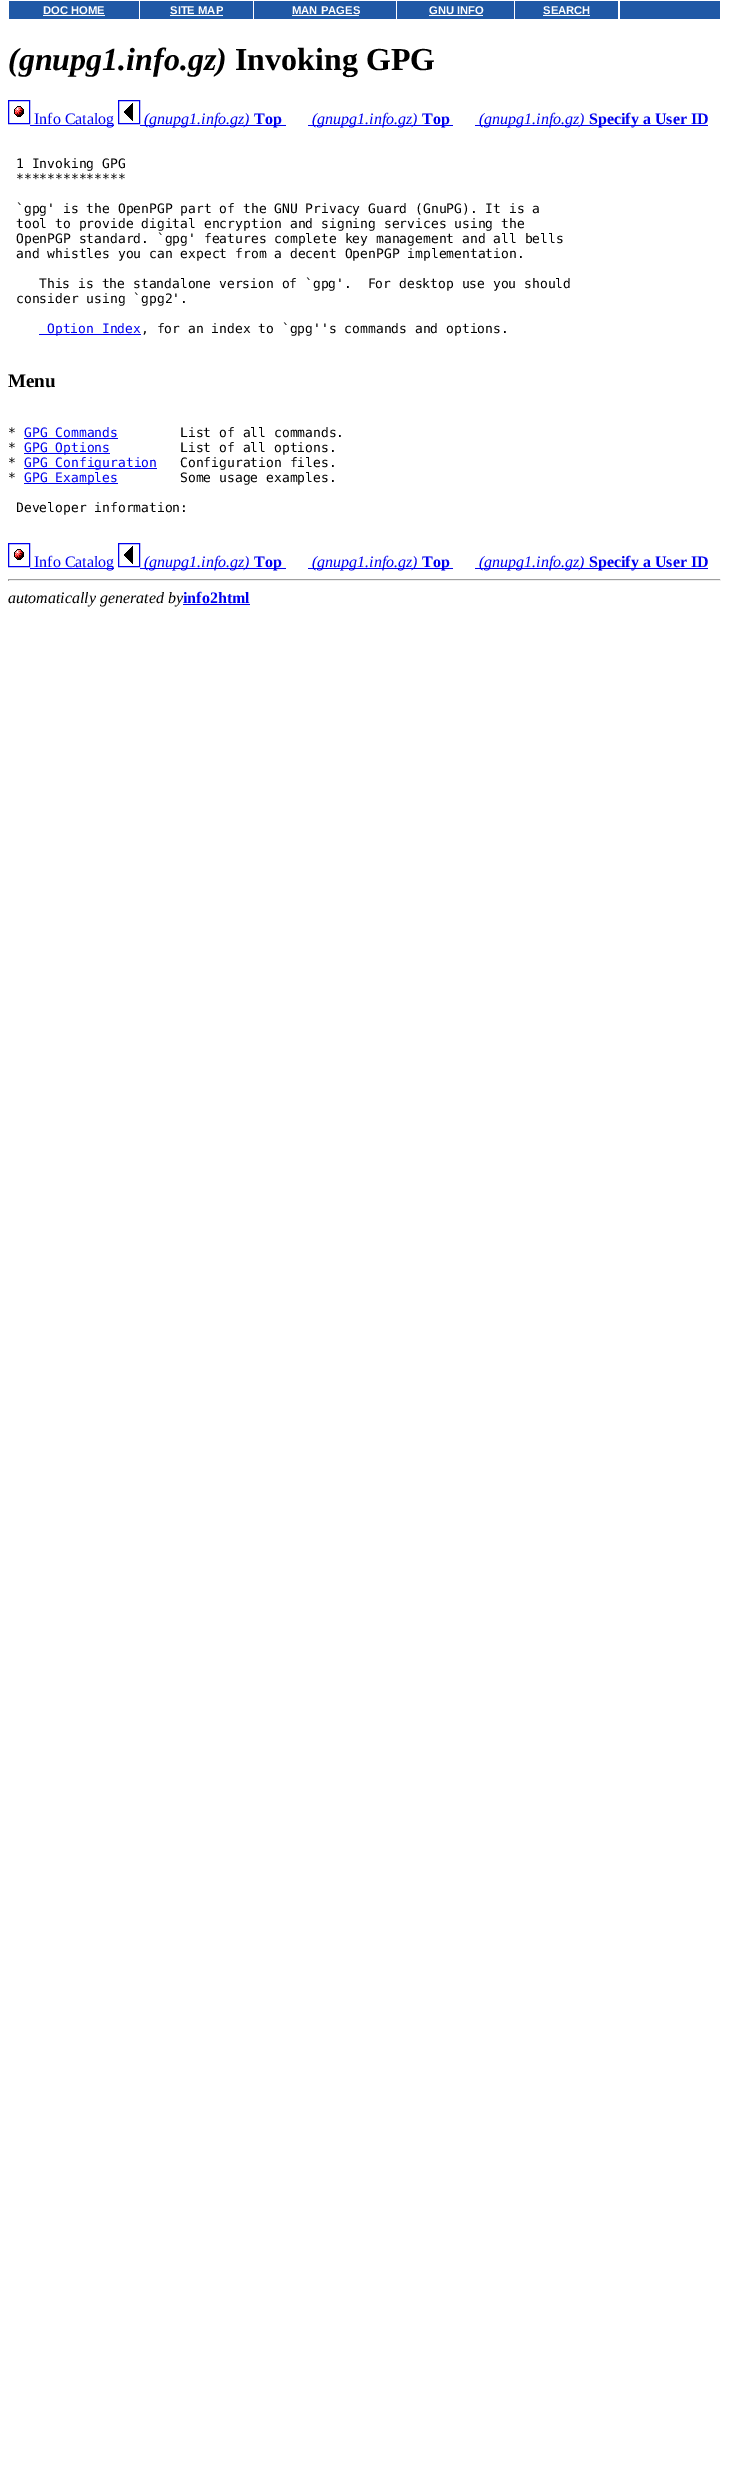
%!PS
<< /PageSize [729 2482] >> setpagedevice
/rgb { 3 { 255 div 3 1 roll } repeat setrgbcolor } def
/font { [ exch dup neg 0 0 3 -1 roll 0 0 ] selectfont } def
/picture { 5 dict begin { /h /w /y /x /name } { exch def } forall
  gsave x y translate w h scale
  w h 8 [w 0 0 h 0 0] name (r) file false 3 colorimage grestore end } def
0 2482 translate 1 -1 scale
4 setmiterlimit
255 255 255 rgb
0 0 729 2482 rectfill
[
  [9 1 130 18 32 89 166]
  [43 15 62 1 255 255 255]
  [140 1 113 18 32 89 166]
  [170 15 53 1 255 255 255]
  [254 1 142 18 32 89 166]
  [292 15 67 1 255 255 255]
  [397 1 117 18 32 89 166]
  [429 15 54 1 255 255 255]
  [515 1 103 18 32 89 166]
  [543 15 47 1 255 255 255]
  [620 1 100 18 32 89 166]
] { aload pop rgb rectfill } forall
0 0 238 rgb
8.5 100.5 21 23 rectstroke
(img/1.rgb) 14 106 10 11 picture
30 125 84 1 rectfill
118.5 100.5 21 23 rectstroke
(img/2.rgb) 124 103 9 18 picture
[
  [140 125 146 1 0 0 238]
  [308 125 145 1 0 0 238]
  [475 125 233 1 0 0 238]
  [39 334 102 1 0 0 238]
  [24 438 94 1 0 0 238]
  [24 453 86 1 0 0 238]
  [24 468 133 1 0 0 238]
  [24 483 94 1 0 0 238]
] { aload pop rgb rectfill } forall
8.5 543.5 21 23 rectstroke
(img/1.rgb) 14 549 10 11 picture
30 568 84 1 rectfill
118.5 543.5 21 23 rectstroke
(img/2.rgb) 124 546 9 18 picture
[
  [140 568 146 1 0 0 238]
  [308 568 145 1 0 0 238]
  [475 568 233 1 0 0 238]
  [8 579 713 1 159 159 159]
  [720 579 1 2 238 238 238]
  [8 580 713 1 238 238 238]
  [8 579 1 2 159 159 159]
] { aload pop rgb rectfill } forall
/LiberationSans-Bold 11.25 font
255 255 255 rgb
[
  [(DOC HOME) 43 14]
  [(SITE MAP) 170 14]
  [(MAN PAGES) 292 14]
  [(GNU INFO) 429 14]
  [(SEARCH) 543 14]
] { aload pop moveto show } forall
/LiberationSerif-BoldItalic 32 font
0 0 0 rgb
8 70 moveto (\(gnupg1.info.gz\)) show
/LiberationSerif-Bold 32 font
235 70 moveto (Invoking GPG) show
/LiberationSerif-Regular 16 font
0 0 238 rgb
34 124 moveto (Info Catalog) show
/LiberationSerif-Italic 16 font
144 124 moveto (\(gnupg1.info.gz\)) show
/LiberationSerif-Bold 16 font
254 124 moveto (Top) show
/LiberationSerif-Italic 16 font
312 124 moveto (\(gnupg1.info.gz\)) show
/LiberationSerif-Bold 16 font
422 124 moveto (Top) show
/LiberationSerif-Italic 16 font
479 124 moveto (\(gnupg1.info.gz\)) show
/LiberationSerif-Bold 16 font
589 124 moveto (Specify a User ID) show
/DejaVuSansMono-Regular 13 font
0 0 0 rgb
[
  [(1 Invoking GPG) 16 168]
  [(**************) 16 183]
  [(`gpg' is the OpenPGP part of the GNU Privacy Guard \(GnuPG\). It is a) 16 213]
  [(tool to provide digital encryption and signing services using the) 16 228]
  [(OpenPGP standard. `gpg' features complete key management and all bells) 16 243]
  [(and whistles you can expect from a decent OpenPGP implementation.) 16 258]
  [(This is the standalone version of `gpg'.  For desktop use you should) 39 288]
  [(consider using `gpg2'.) 16 303]
] { aload pop moveto show } forall
0 0 238 rgb
47 333 moveto (Option Index) show
0 0 0 rgb
141 333 moveto (, for an index to `gpg''s commands and options.) show
/LiberationSerif-Bold 19 font
8 387 moveto (Menu) show
/DejaVuSansMono-Regular 13 font
8 437 moveto (*) show
0 0 238 rgb
24 437 moveto (GPG Commands) show
0 0 0 rgb
180 437 moveto (List of all commands.) show
8 452 moveto (*) show
0 0 238 rgb
24 452 moveto (GPG Options) show
0 0 0 rgb
180 452 moveto (List of all options.) show
8 467 moveto (*) show
0 0 238 rgb
24 467 moveto (GPG Configuration) show
0 0 0 rgb
180 467 moveto (Configuration files.) show
8 482 moveto (*) show
0 0 238 rgb
24 482 moveto (GPG Examples) show
0 0 0 rgb
180 482 moveto (Some usage examples.) show
16 512 moveto (Developer information:) show
/LiberationSerif-Regular 16 font
0 0 238 rgb
34 567 moveto (Info Catalog) show
/LiberationSerif-Italic 16 font
144 567 moveto (\(gnupg1.info.gz\)) show
/LiberationSerif-Bold 16 font
254 567 moveto (Top) show
/LiberationSerif-Italic 16 font
312 567 moveto (\(gnupg1.info.gz\)) show
/LiberationSerif-Bold 16 font
422 567 moveto (Top) show
/LiberationSerif-Italic 16 font
479 567 moveto (\(gnupg1.info.gz\)) show
/LiberationSerif-Bold 16 font
589 567 moveto (Specify a User ID) show
/LiberationSerif-Italic 16 font
0 0 0 rgb
8 603 moveto (automatically generated by) show
/LiberationSerif-Bold 16 font
0 0 238 rgb
183 603 moveto (info2html) show
183 604 67 1 rectfill
showpage
